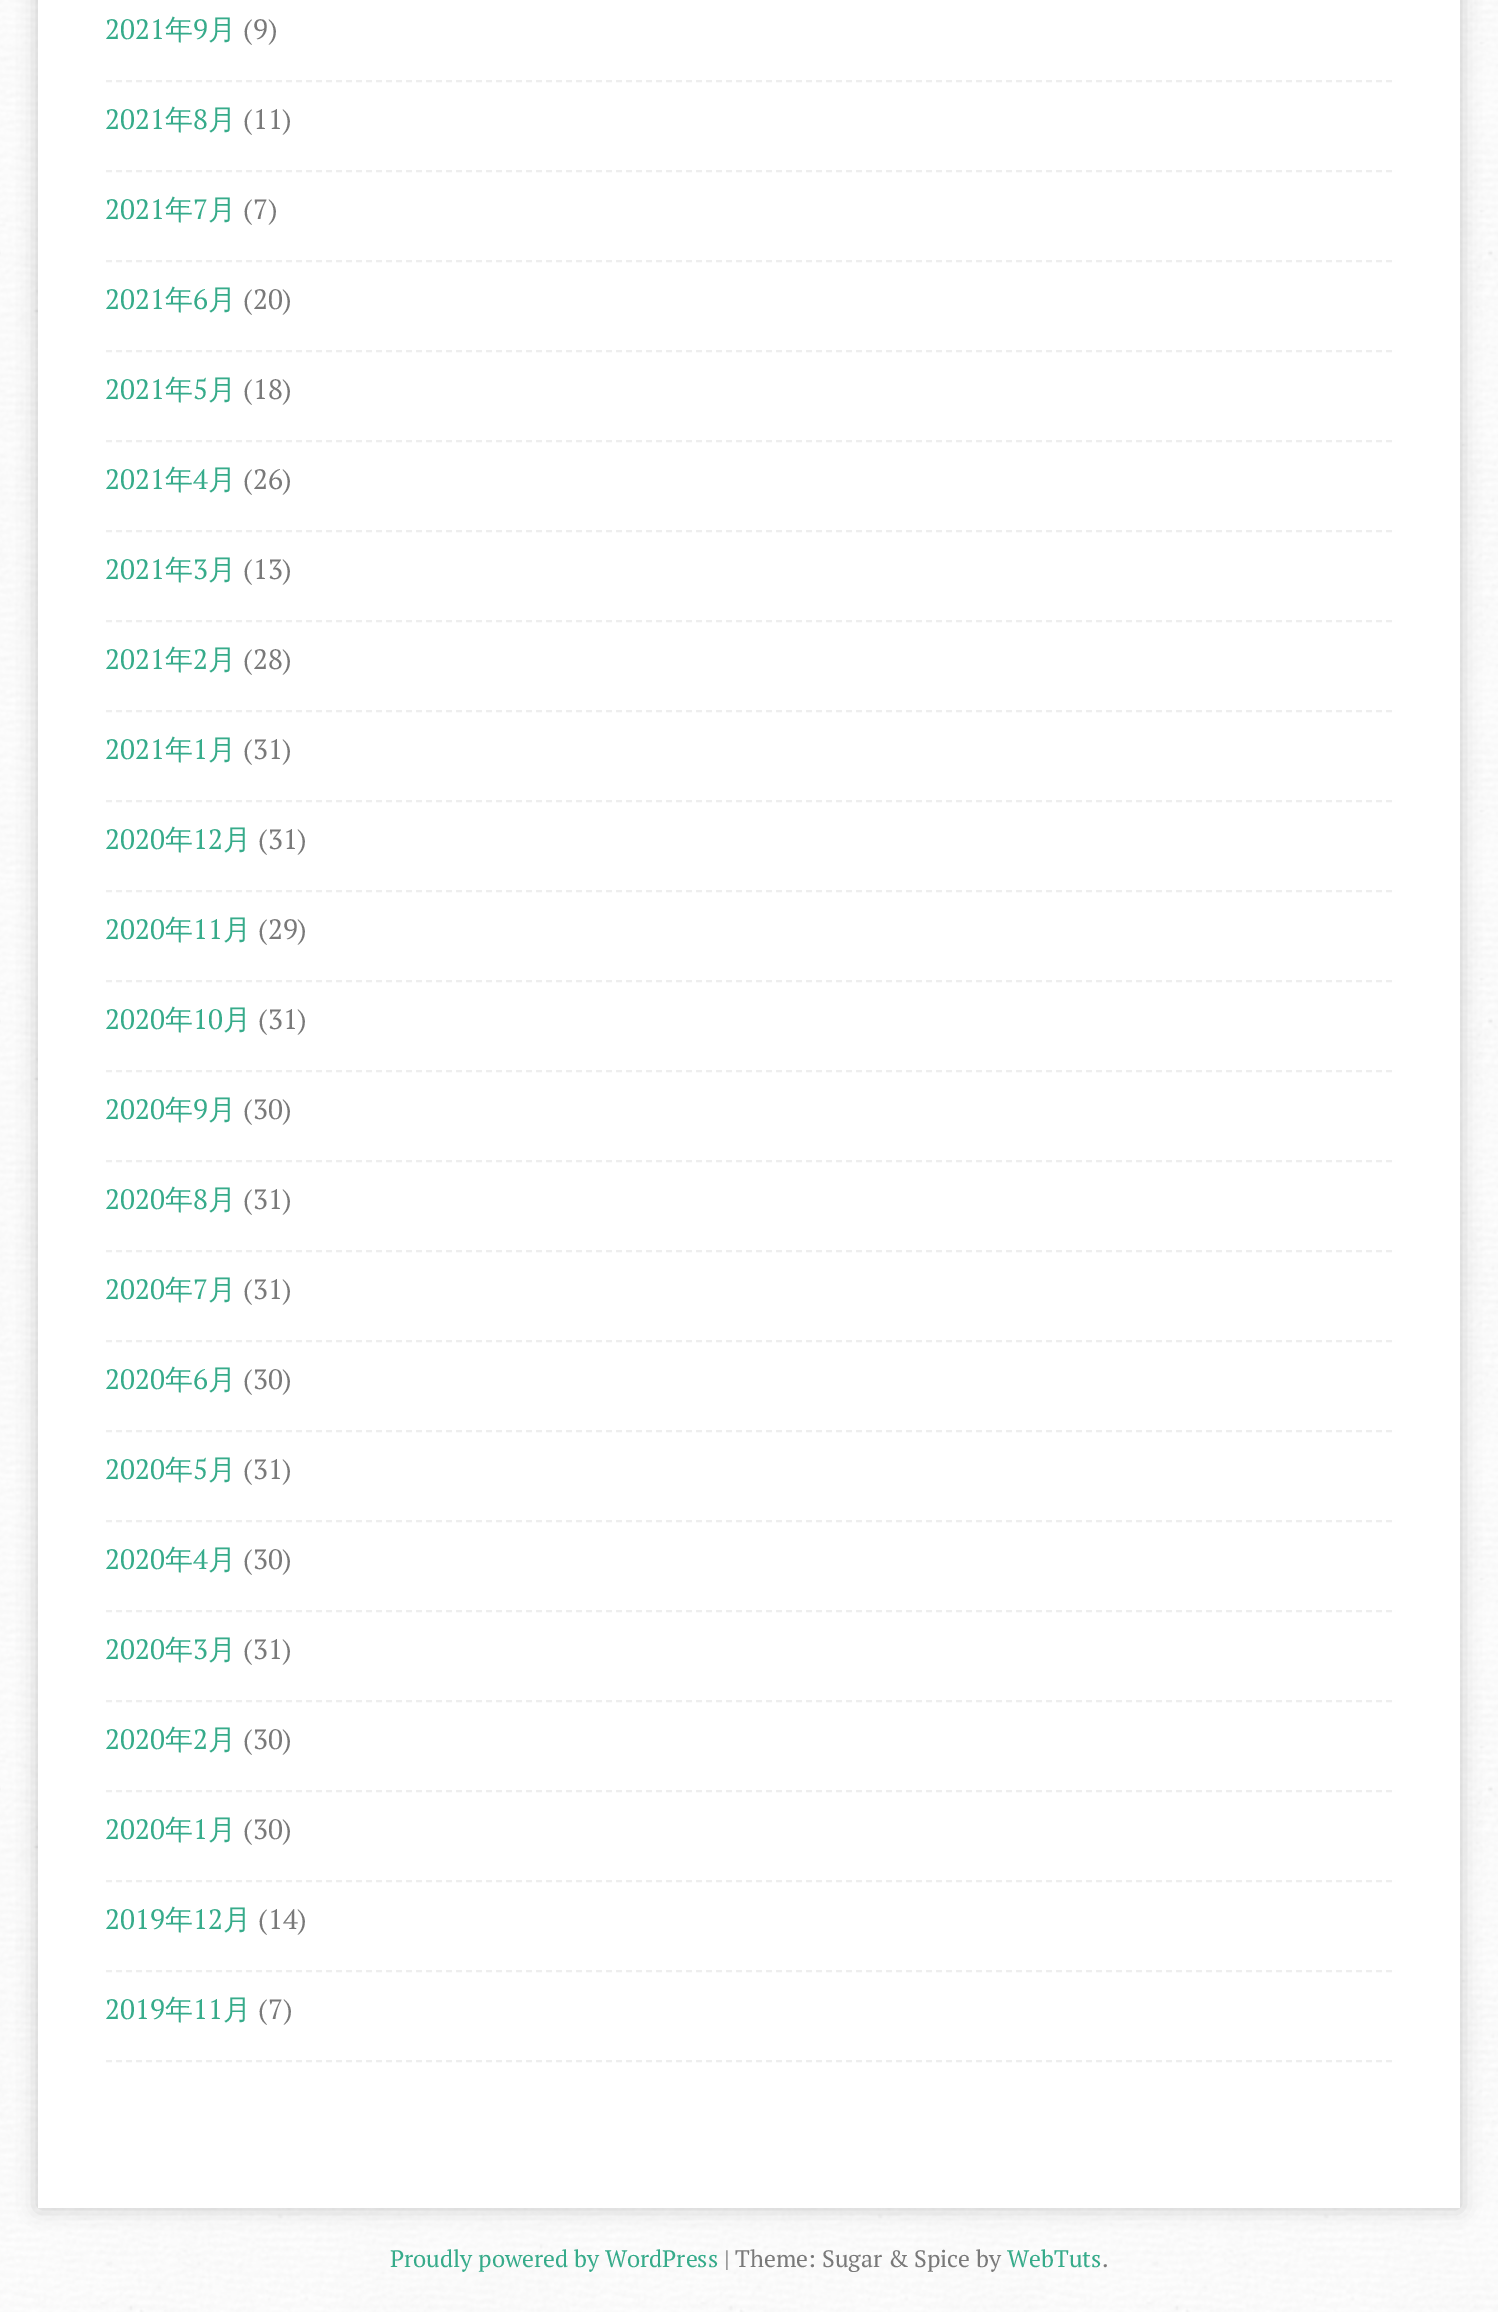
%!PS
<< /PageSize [1498 2312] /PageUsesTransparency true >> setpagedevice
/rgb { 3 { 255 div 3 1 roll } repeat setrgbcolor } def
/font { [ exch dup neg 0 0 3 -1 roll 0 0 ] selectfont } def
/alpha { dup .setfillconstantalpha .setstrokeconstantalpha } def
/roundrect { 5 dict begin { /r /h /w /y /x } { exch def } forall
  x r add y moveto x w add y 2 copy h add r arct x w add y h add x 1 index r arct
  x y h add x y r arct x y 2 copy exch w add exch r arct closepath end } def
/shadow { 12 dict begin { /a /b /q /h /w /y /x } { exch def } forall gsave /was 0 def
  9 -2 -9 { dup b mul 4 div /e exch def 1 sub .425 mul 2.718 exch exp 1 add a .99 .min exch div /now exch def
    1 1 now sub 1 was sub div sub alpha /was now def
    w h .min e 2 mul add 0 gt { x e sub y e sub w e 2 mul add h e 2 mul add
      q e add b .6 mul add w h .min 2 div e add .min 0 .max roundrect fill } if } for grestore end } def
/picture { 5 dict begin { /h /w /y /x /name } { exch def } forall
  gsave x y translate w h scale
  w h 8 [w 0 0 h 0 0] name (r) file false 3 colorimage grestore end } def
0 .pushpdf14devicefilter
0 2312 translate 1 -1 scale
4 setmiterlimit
255 255 255 rgb
0 0 1498 2312 rectfill
(img/1.rgb) 0 0 1498 2312 picture
0 0 0 rgb
38 -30 1422 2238 0 10 0.2 shadow
255 255 255 rgb
38 0 1422 2208 rectfill
238 238 238 rgb
2 setlinewidth
[6 4] 0 setdash
106 81 moveto 1392 81 lineto stroke
106 171 moveto 1392 171 lineto stroke
106 261 moveto 1392 261 lineto stroke
106 351 moveto 1392 351 lineto stroke
106 441 moveto 1392 441 lineto stroke
106 531 moveto 1392 531 lineto stroke
106 621 moveto 1392 621 lineto stroke
106 711 moveto 1392 711 lineto stroke
106 801 moveto 1392 801 lineto stroke
106 891 moveto 1392 891 lineto stroke
106 981 moveto 1392 981 lineto stroke
106 1071 moveto 1392 1071 lineto stroke
106 1161 moveto 1392 1161 lineto stroke
106 1251 moveto 1392 1251 lineto stroke
106 1341 moveto 1392 1341 lineto stroke
106 1431 moveto 1392 1431 lineto stroke
106 1521 moveto 1392 1521 lineto stroke
106 1611 moveto 1392 1611 lineto stroke
106 1701 moveto 1392 1701 lineto stroke
106 1791 moveto 1392 1791 lineto stroke
106 1881 moveto 1392 1881 lineto stroke
106 1971 moveto 1392 1971 lineto stroke
106 2061 moveto 1392 2061 lineto stroke
/PTSerif-Regular 28 font
54 171 138 rgb
105 39 moveto (2021) show
/WenQuanYiZenHei-Medium 28 font
165 39 moveto (年) show
/PTSerif-Regular 28 font
193 39 moveto (9) show
/WenQuanYiZenHei-Medium 28 font
208 39 moveto (月) show
/PTSerif-Regular 28 font
121 121 121 rgb
243 39 moveto (\(9\)) show
54 171 138 rgb
105 129 moveto (2021) show
/WenQuanYiZenHei-Medium 28 font
165 129 moveto (年) show
/PTSerif-Regular 28 font
193 129 moveto (8) show
/WenQuanYiZenHei-Medium 28 font
208 129 moveto (月) show
/PTSerif-Regular 28 font
121 121 121 rgb
243 129 moveto (\(11\)) show
54 171 138 rgb
105 219 moveto (2021) show
/WenQuanYiZenHei-Medium 28 font
165 219 moveto (年) show
/PTSerif-Regular 28 font
193 219 moveto (7) show
/WenQuanYiZenHei-Medium 28 font
208 219 moveto (月) show
/PTSerif-Regular 28 font
121 121 121 rgb
243 219 moveto (\(7\)) show
54 171 138 rgb
105 309 moveto (2021) show
/WenQuanYiZenHei-Medium 28 font
165 309 moveto (年) show
/PTSerif-Regular 28 font
193 309 moveto (6) show
/WenQuanYiZenHei-Medium 28 font
208 309 moveto (月) show
/PTSerif-Regular 28 font
121 121 121 rgb
243 309 moveto (\(20\)) show
54 171 138 rgb
105 399 moveto (2021) show
/WenQuanYiZenHei-Medium 28 font
165 399 moveto (年) show
/PTSerif-Regular 28 font
193 399 moveto (5) show
/WenQuanYiZenHei-Medium 28 font
208 399 moveto (月) show
/PTSerif-Regular 28 font
121 121 121 rgb
243 399 moveto (\(18\)) show
54 171 138 rgb
105 489 moveto (2021) show
/WenQuanYiZenHei-Medium 28 font
165 489 moveto (年) show
/PTSerif-Regular 28 font
193 489 moveto (4) show
/WenQuanYiZenHei-Medium 28 font
208 489 moveto (月) show
/PTSerif-Regular 28 font
121 121 121 rgb
243 489 moveto (\(26\)) show
54 171 138 rgb
105 579 moveto (2021) show
/WenQuanYiZenHei-Medium 28 font
165 579 moveto (年) show
/PTSerif-Regular 28 font
193 579 moveto (3) show
/WenQuanYiZenHei-Medium 28 font
208 579 moveto (月) show
/PTSerif-Regular 28 font
121 121 121 rgb
243 579 moveto (\(13\)) show
54 171 138 rgb
105 669 moveto (2021) show
/WenQuanYiZenHei-Medium 28 font
165 669 moveto (年) show
/PTSerif-Regular 28 font
193 669 moveto (2) show
/WenQuanYiZenHei-Medium 28 font
208 669 moveto (月) show
/PTSerif-Regular 28 font
121 121 121 rgb
243 669 moveto (\(28\)) show
54 171 138 rgb
105 759 moveto (2021) show
/WenQuanYiZenHei-Medium 28 font
165 759 moveto (年) show
/PTSerif-Regular 28 font
193 759 moveto (1) show
/WenQuanYiZenHei-Medium 28 font
208 759 moveto (月) show
/PTSerif-Regular 28 font
121 121 121 rgb
243 759 moveto (\(31\)) show
54 171 138 rgb
105 849 moveto (2020) show
/WenQuanYiZenHei-Medium 28 font
165 849 moveto (年) show
/PTSerif-Regular 28 font
193 849 moveto (12) show
/WenQuanYiZenHei-Medium 28 font
223 849 moveto (月) show
/PTSerif-Regular 28 font
121 121 121 rgb
258 849 moveto (\(31\)) show
54 171 138 rgb
105 939 moveto (2020) show
/WenQuanYiZenHei-Medium 28 font
165 939 moveto (年) show
/PTSerif-Regular 28 font
193 939 moveto (11) show
/WenQuanYiZenHei-Medium 28 font
223 939 moveto (月) show
/PTSerif-Regular 28 font
121 121 121 rgb
258 939 moveto (\(29\)) show
54 171 138 rgb
105 1029 moveto (2020) show
/WenQuanYiZenHei-Medium 28 font
165 1029 moveto (年) show
/PTSerif-Regular 28 font
193 1029 moveto (10) show
/WenQuanYiZenHei-Medium 28 font
223 1029 moveto (月) show
/PTSerif-Regular 28 font
121 121 121 rgb
258 1029 moveto (\(31\)) show
54 171 138 rgb
105 1119 moveto (2020) show
/WenQuanYiZenHei-Medium 28 font
165 1119 moveto (年) show
/PTSerif-Regular 28 font
193 1119 moveto (9) show
/WenQuanYiZenHei-Medium 28 font
208 1119 moveto (月) show
/PTSerif-Regular 28 font
121 121 121 rgb
243 1119 moveto (\(30\)) show
54 171 138 rgb
105 1209 moveto (2020) show
/WenQuanYiZenHei-Medium 28 font
165 1209 moveto (年) show
/PTSerif-Regular 28 font
193 1209 moveto (8) show
/WenQuanYiZenHei-Medium 28 font
208 1209 moveto (月) show
/PTSerif-Regular 28 font
121 121 121 rgb
243 1209 moveto (\(31\)) show
54 171 138 rgb
105 1299 moveto (2020) show
/WenQuanYiZenHei-Medium 28 font
165 1299 moveto (年) show
/PTSerif-Regular 28 font
193 1299 moveto (7) show
/WenQuanYiZenHei-Medium 28 font
208 1299 moveto (月) show
/PTSerif-Regular 28 font
121 121 121 rgb
243 1299 moveto (\(31\)) show
54 171 138 rgb
105 1389 moveto (2020) show
/WenQuanYiZenHei-Medium 28 font
165 1389 moveto (年) show
/PTSerif-Regular 28 font
193 1389 moveto (6) show
/WenQuanYiZenHei-Medium 28 font
208 1389 moveto (月) show
/PTSerif-Regular 28 font
121 121 121 rgb
243 1389 moveto (\(30\)) show
54 171 138 rgb
105 1479 moveto (2020) show
/WenQuanYiZenHei-Medium 28 font
165 1479 moveto (年) show
/PTSerif-Regular 28 font
193 1479 moveto (5) show
/WenQuanYiZenHei-Medium 28 font
208 1479 moveto (月) show
/PTSerif-Regular 28 font
121 121 121 rgb
243 1479 moveto (\(31\)) show
54 171 138 rgb
105 1569 moveto (2020) show
/WenQuanYiZenHei-Medium 28 font
165 1569 moveto (年) show
/PTSerif-Regular 28 font
193 1569 moveto (4) show
/WenQuanYiZenHei-Medium 28 font
208 1569 moveto (月) show
/PTSerif-Regular 28 font
121 121 121 rgb
243 1569 moveto (\(30\)) show
54 171 138 rgb
105 1659 moveto (2020) show
/WenQuanYiZenHei-Medium 28 font
165 1659 moveto (年) show
/PTSerif-Regular 28 font
193 1659 moveto (3) show
/WenQuanYiZenHei-Medium 28 font
208 1659 moveto (月) show
/PTSerif-Regular 28 font
121 121 121 rgb
243 1659 moveto (\(31\)) show
54 171 138 rgb
105 1749 moveto (2020) show
/WenQuanYiZenHei-Medium 28 font
165 1749 moveto (年) show
/PTSerif-Regular 28 font
193 1749 moveto (2) show
/WenQuanYiZenHei-Medium 28 font
208 1749 moveto (月) show
/PTSerif-Regular 28 font
121 121 121 rgb
243 1749 moveto (\(30\)) show
54 171 138 rgb
105 1839 moveto (2020) show
/WenQuanYiZenHei-Medium 28 font
165 1839 moveto (年) show
/PTSerif-Regular 28 font
193 1839 moveto (1) show
/WenQuanYiZenHei-Medium 28 font
208 1839 moveto (月) show
/PTSerif-Regular 28 font
121 121 121 rgb
243 1839 moveto (\(30\)) show
54 171 138 rgb
105 1929 moveto (2019) show
/WenQuanYiZenHei-Medium 28 font
165 1929 moveto (年) show
/PTSerif-Regular 28 font
193 1929 moveto (12) show
/WenQuanYiZenHei-Medium 28 font
223 1929 moveto (月) show
/PTSerif-Regular 28 font
121 121 121 rgb
258 1929 moveto (\(14\)) show
54 171 138 rgb
105 2019 moveto (2019) show
/WenQuanYiZenHei-Medium 28 font
165 2019 moveto (年) show
/PTSerif-Regular 28 font
193 2019 moveto (11) show
/WenQuanYiZenHei-Medium 28 font
223 2019 moveto (月) show
/PTSerif-Regular 28 font
121 121 121 rgb
258 2019 moveto (\(7\)) show
/PTSerif-Regular 23.75 font
54 171 138 rgb
390 2267 moveto (Proudly powered by WordPress) show
121 121 121 rgb
724 2267 moveto (| Theme: Sugar & Spice by) show
54 171 138 rgb
1007 2267 moveto (WebTuts) show
121 121 121 rgb
1102 2267 moveto (.) show
.poppdf14devicefilter showpage
